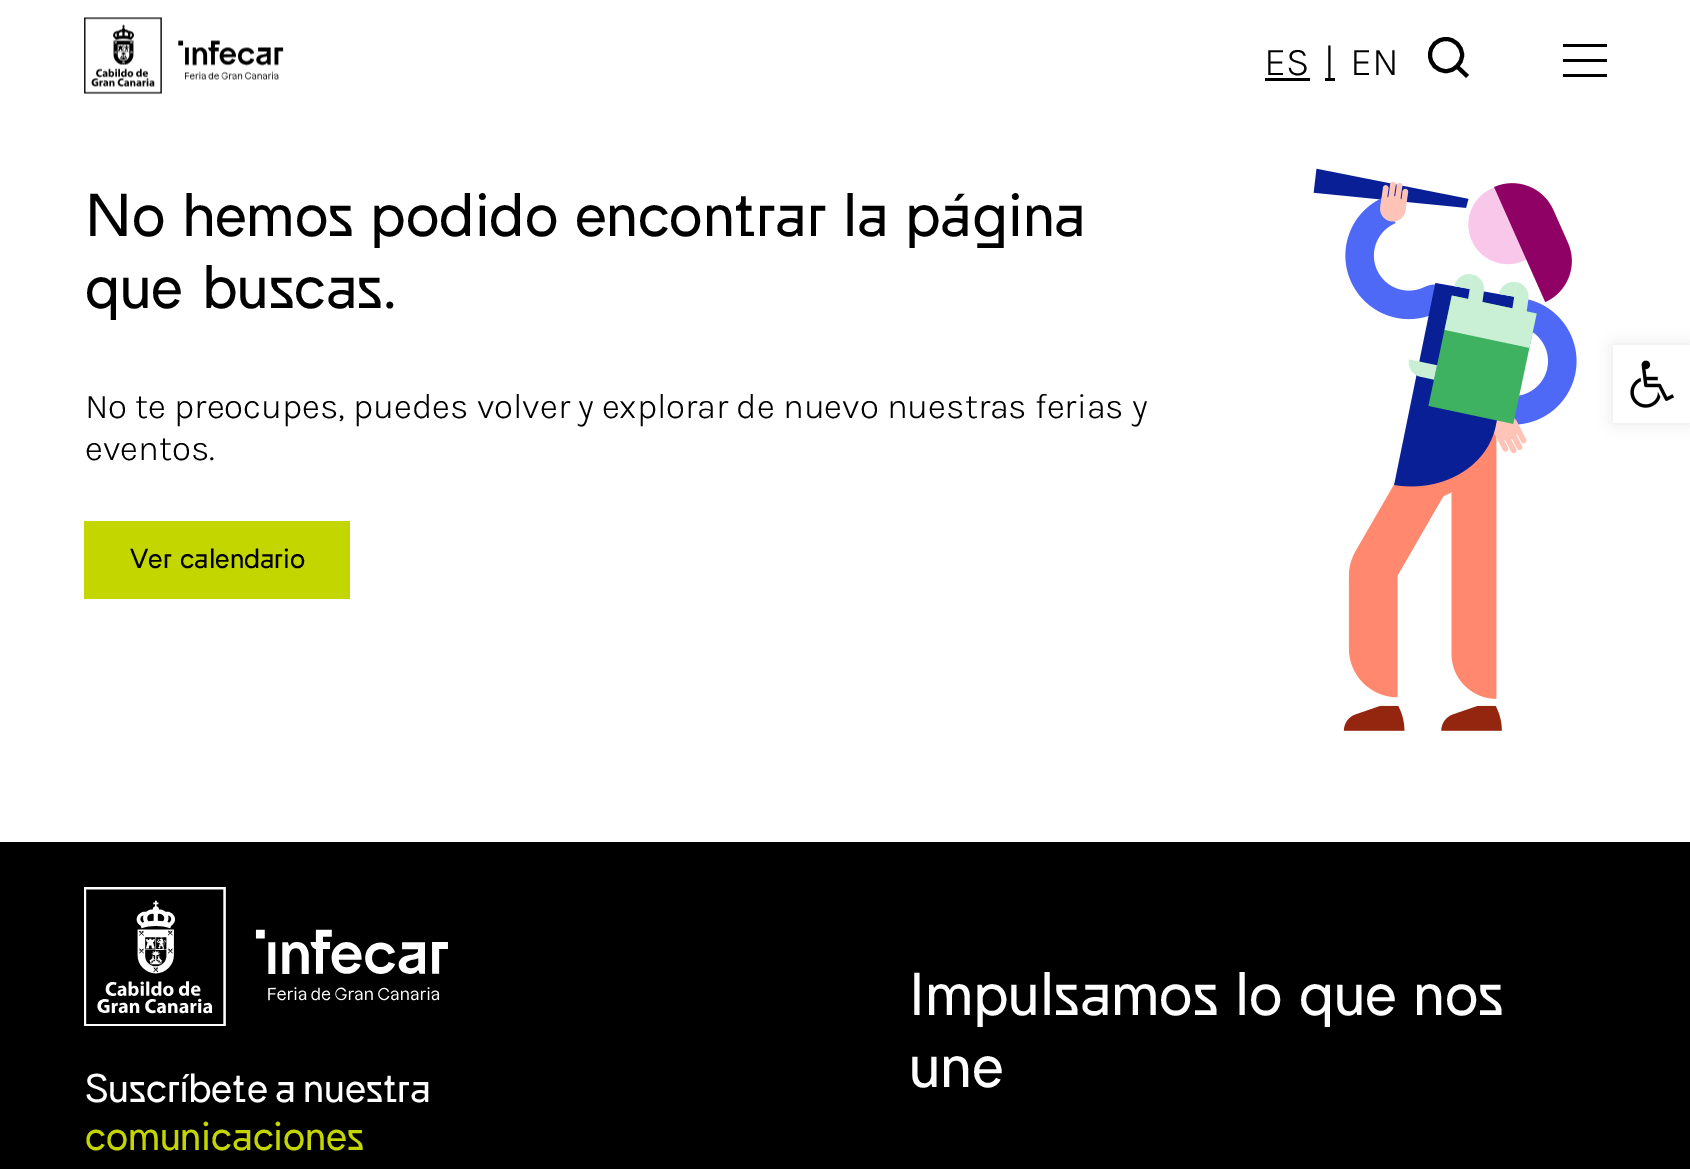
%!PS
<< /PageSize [1690 1169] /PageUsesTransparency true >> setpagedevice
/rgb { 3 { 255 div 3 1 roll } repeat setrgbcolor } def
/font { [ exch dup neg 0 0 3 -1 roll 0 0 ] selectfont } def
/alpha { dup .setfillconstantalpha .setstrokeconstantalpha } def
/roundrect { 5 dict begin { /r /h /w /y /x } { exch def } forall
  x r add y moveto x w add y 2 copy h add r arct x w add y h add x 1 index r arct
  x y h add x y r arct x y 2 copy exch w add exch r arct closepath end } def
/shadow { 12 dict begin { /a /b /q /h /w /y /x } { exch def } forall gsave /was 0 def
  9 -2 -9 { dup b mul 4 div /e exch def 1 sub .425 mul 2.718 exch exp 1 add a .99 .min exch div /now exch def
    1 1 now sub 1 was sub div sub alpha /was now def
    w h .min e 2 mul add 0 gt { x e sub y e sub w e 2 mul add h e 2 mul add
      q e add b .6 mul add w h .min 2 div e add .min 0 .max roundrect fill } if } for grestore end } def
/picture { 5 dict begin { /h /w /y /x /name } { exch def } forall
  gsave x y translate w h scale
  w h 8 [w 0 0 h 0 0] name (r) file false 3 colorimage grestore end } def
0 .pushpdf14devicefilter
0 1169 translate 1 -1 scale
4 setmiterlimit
255 255 255 rgb
0 0 1690 1169 rectfill
(img/1.rgb) 84 17 200 77 picture
0 0 0 rgb
1265 78 45 3 rectfill
1325 78 10 3 rectfill
4 setlinewidth
1 setlinecap
1 setlinejoin
1446 71 moveto 1454.5 71 1462 64 1462 55 curveto 1462 46 1454.5 39 1446 39 curveto 1437 39 1430 46 1430 55 curveto 1430 64 1437 71 1446 71 curveto closepath stroke
2 setlinecap
1466 75 moveto 1457 66.5 lineto stroke
[
  [1563 44 44 3 0 0 0]
  [1563 59 44 3 0 0 0]
  [1563 74 44 3 0 0 0]
  [84 521 266 78 196 214 0]
] { aload pop rgb rectfill } forall
(img/2.rgb) 1313 168 264 563 picture
gsave
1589 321 moveto 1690 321 lineto 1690 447 lineto 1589 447 lineto closepath 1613 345 moveto 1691 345 lineto 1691 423 lineto 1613 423 lineto closepath eoclip newpath
0 0 0 rgb
1613 345 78 78 0 7.5 0.1 shadow
grestore
(img/3.rgb) 1630 360 44 48 picture
0 0 0 rgb
0 842 1690 327 rectfill
(img/4.rgb) 84 887 364 139 picture
/Karla-Light 40 font
[
  [(ES) 1264 75]
  [(|) 1324 75]
  [(EN) 1350 75]
] { aload pop moveto show } forall
/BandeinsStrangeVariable-Regular 60.4 font
85 236 moveto 2 0 32 (No hemos podido encontrar la página) widthshow
85 308 moveto 4 0 32 (que buscas.) widthshow
/Karla-Light 35.2 font
85 418 moveto (No te preocupes, puedes volver y explorar de nuevo nuestras ferias y) show
85 460 moveto (eventos.) show
/BandeinsStrangeVariable-Regular 27.5 font
130 568 moveto 2 0 32 (Ver calendario) widthshow
/BandeinsStrangeVariable-Regular 60.4 font
255 255 255 rgb
909 1015 moveto 2 0 32 (Impulsamos lo que nos) widthshow
909 1087 moveto (une) show
/BandeinsStrangeVariable-Regular 40 font
85 1102 moveto -2 0 32 (Suscríbete a nuestra) widthshow
196 214 0 rgb
85 1150 moveto (comunicaciones) show
.poppdf14devicefilter showpage
